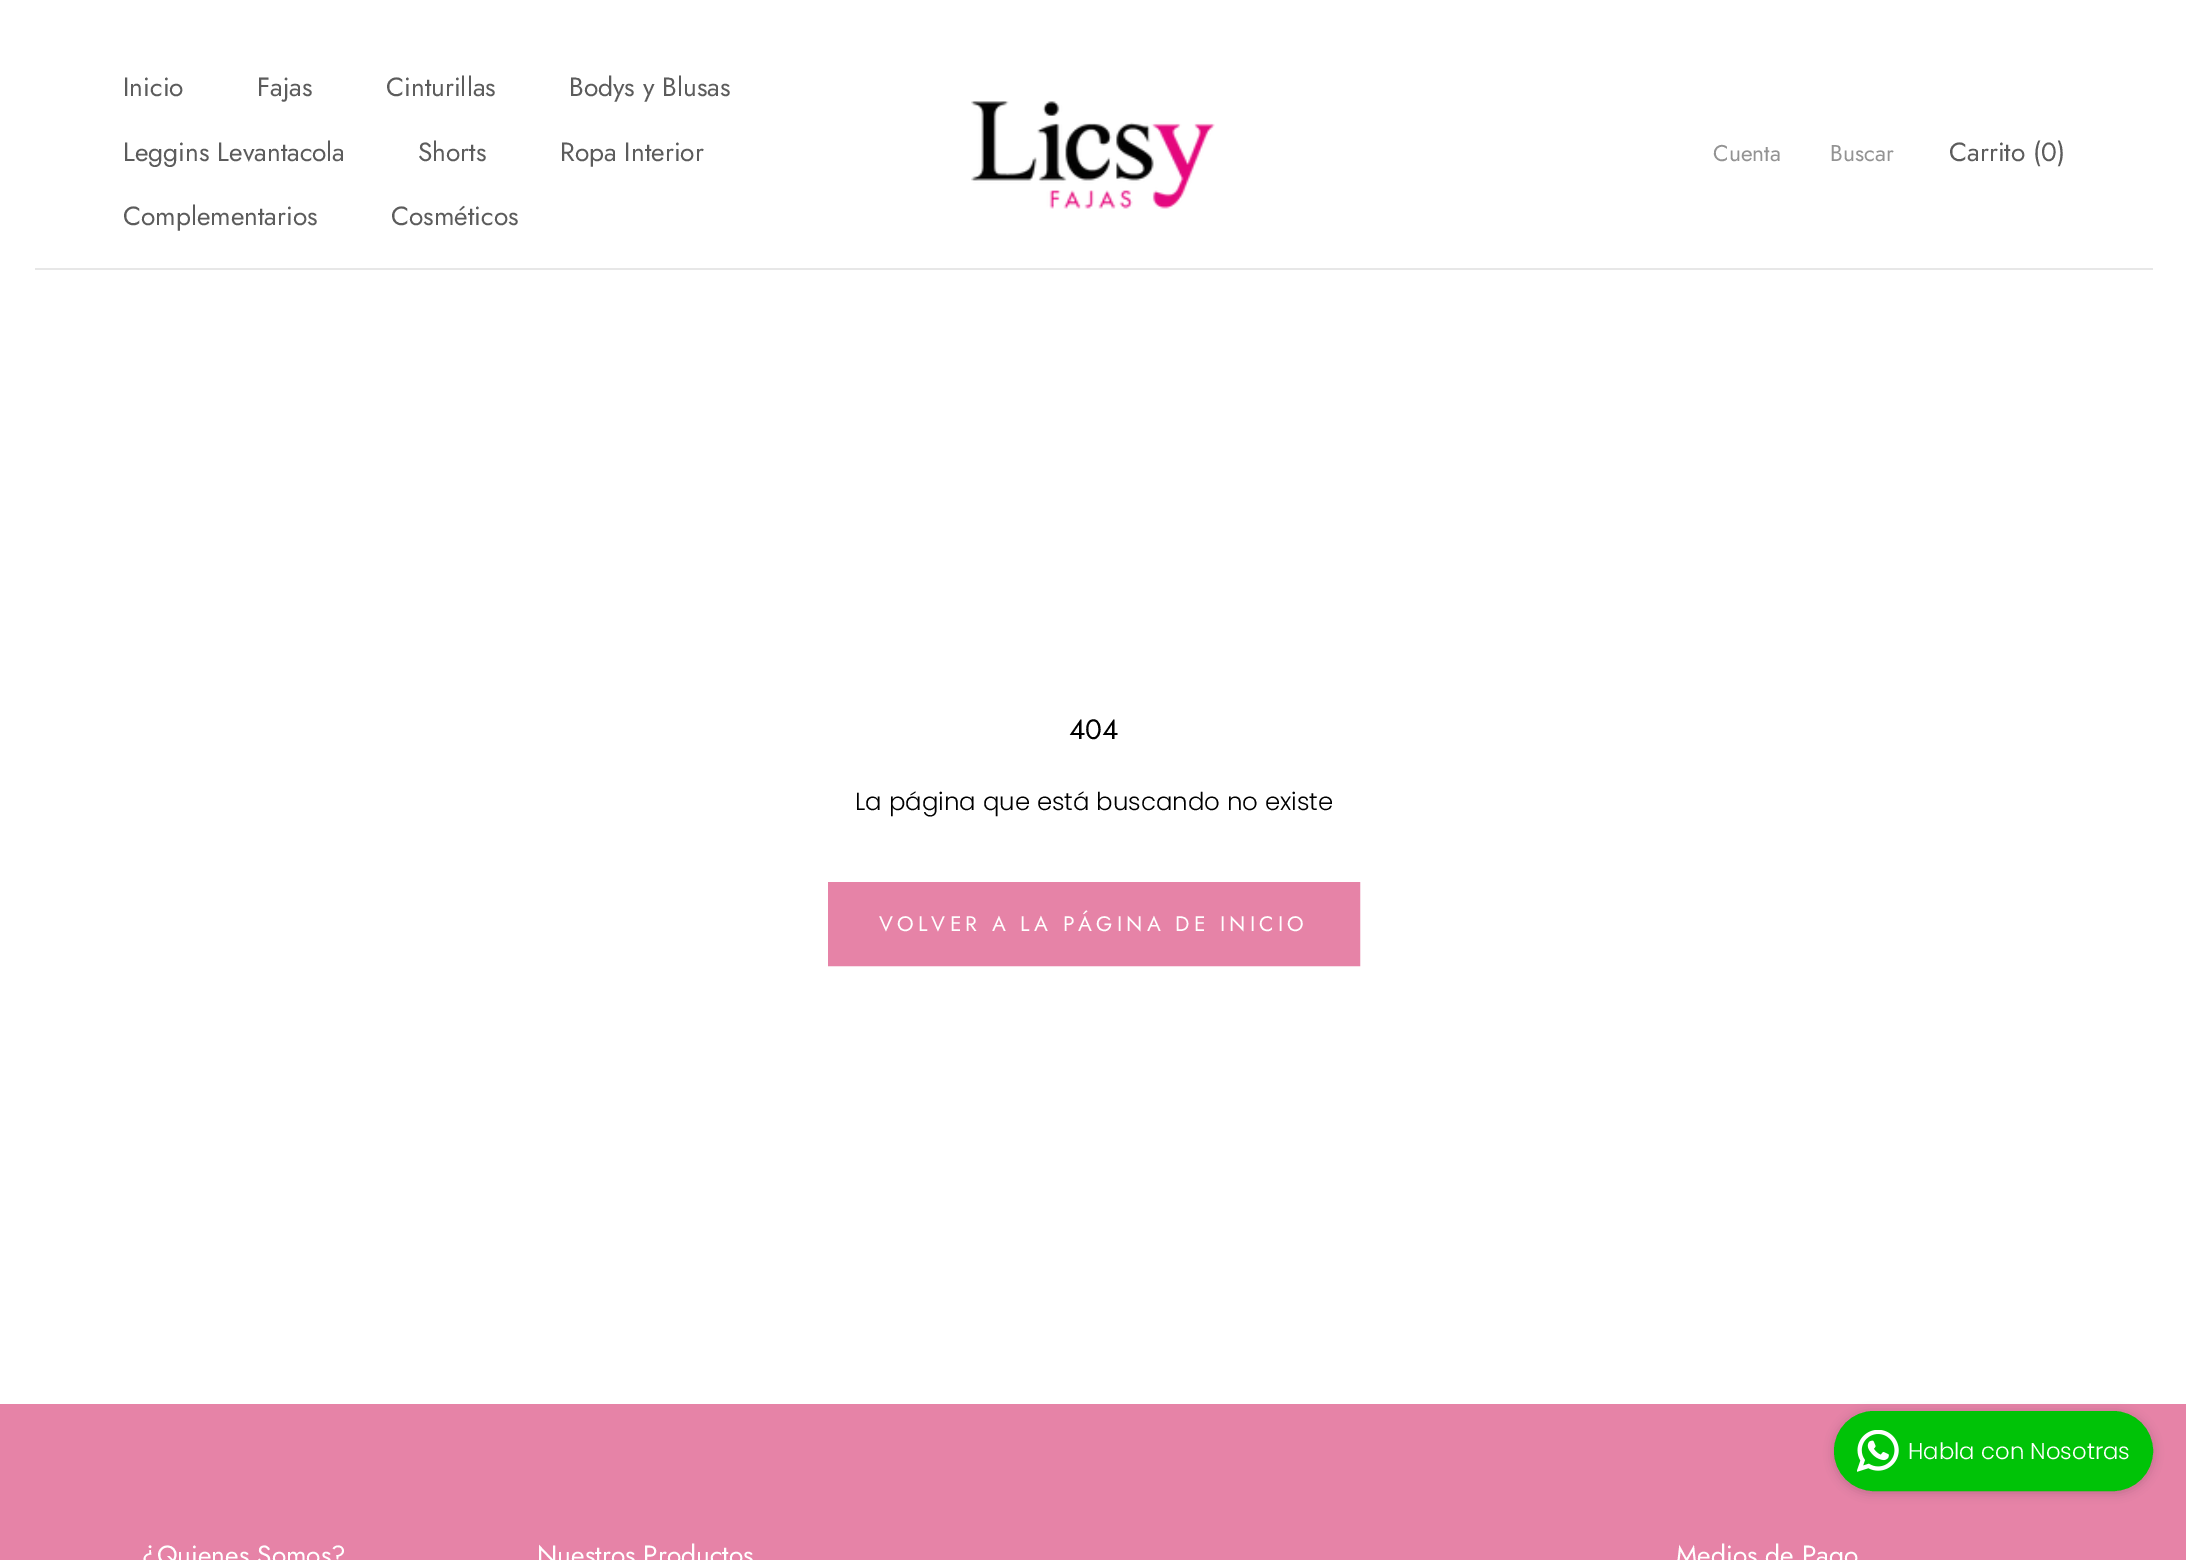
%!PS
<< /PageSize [2186 1560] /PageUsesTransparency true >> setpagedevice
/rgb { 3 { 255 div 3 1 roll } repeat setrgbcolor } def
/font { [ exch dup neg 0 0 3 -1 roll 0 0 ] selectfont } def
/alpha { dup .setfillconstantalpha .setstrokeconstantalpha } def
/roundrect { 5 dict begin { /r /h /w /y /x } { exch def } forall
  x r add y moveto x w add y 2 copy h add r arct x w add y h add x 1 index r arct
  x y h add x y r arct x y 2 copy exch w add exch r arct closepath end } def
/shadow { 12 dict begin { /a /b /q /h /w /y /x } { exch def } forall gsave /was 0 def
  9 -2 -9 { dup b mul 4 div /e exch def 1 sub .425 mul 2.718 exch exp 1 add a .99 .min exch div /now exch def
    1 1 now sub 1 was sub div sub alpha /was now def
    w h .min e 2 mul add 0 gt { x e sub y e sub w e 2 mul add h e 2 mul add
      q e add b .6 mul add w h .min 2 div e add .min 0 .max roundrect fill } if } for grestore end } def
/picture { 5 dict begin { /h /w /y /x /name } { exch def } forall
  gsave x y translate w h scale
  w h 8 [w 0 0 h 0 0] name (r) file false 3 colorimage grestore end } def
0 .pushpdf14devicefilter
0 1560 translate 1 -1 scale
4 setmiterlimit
255 255 255 rgb
0 0 2186 1560 rectfill
231 231 231 rgb
35 268 2118 2 rectfill
(img/1.rgb) 971 101 244 108 picture
230 131 167 rgb
2 setlinewidth
829 883 530 82 rectstroke
830 884 528 80 rectfill
0 1404 2186 156 rectfill
27 27 27 rgb
1834 1412 319 81 40.5 5 0.2 shadow
0 195 7 rgb
1835 1412 317 78 39 roundrect gsave fill grestore
stroke
(img/2.rgb) 1857 1430 42 42 picture
/Jost-Regular 26.25 font
92 92 92 rgb
[
  [(Inicio) 123 96]
  [(Fajas) 257 96]
  [(Cinturillas) 386 96]
  [(Bodys y Blusas) 569 96]
  [(Leggins Levantacola) 123 161]
  [(Shorts) 418 161]
  [(Ropa Interior) 560 161]
  [(Complementarios) 123 225]
  [(Cosméticos) 391 225]
] { aload pop moveto show } forall
/Jost-Regular 22.75 font
147 147 147 rgb
1713 161 moveto (Cuenta) show
1830 161 moveto (Buscar) show
/Jost-Regular 26.25 font
92 92 92 rgb
1949 161 moveto (Carrito \(0\)) show
/Jost-Regular 28 font
0 0 0 rgb
1069 739 moveto (404) show
/Poppins-Light 24.5 font
855 810 moveto (La página que está buscando no existe) show
/Jost-Regular 21 font
255 255 255 rgb
879 931 moveto 4.2 0 (VOLVER A LA PÁGINA DE INICIO) ashow
/Jost-Regular 26.25 font
[
  [(¿Quienes Somos?) 142 1564]
  [(Nuestros Productos) 537 1564]
  [(Medios de Pago) 1676 1564]
] { aload pop moveto show } forall
/Poppins-Light 22.75 font
1908 1459 moveto (Habla con Nosotras) show
.poppdf14devicefilter showpage
